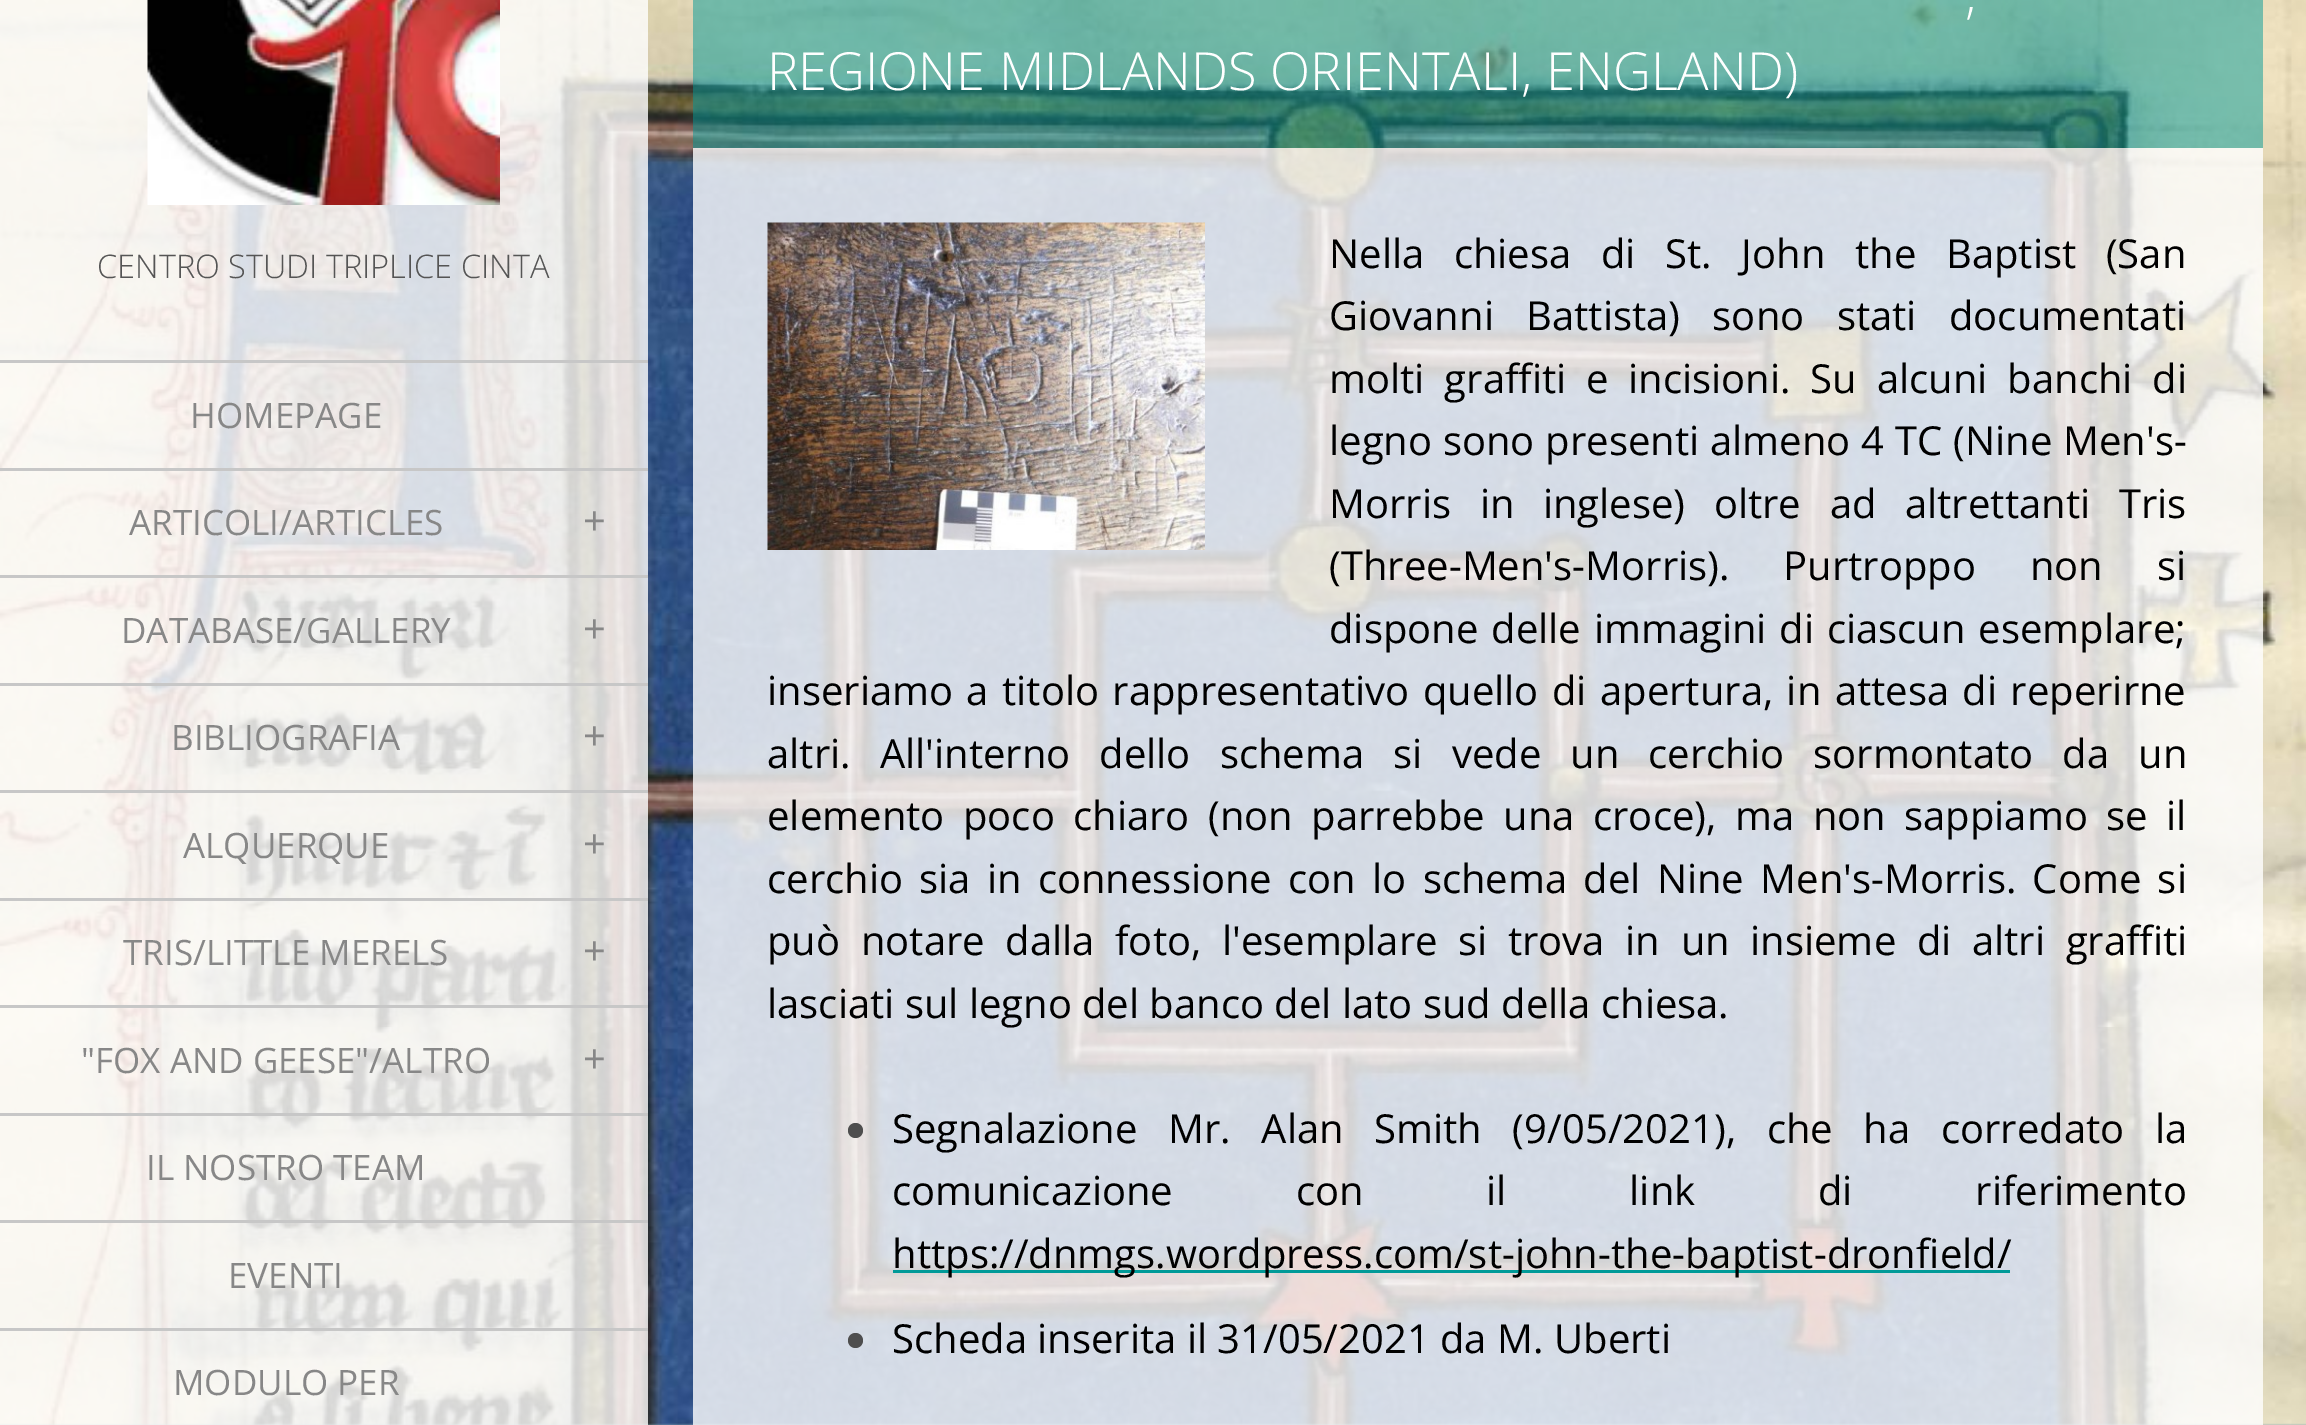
%!PS
<< /PageSize [2306 1425] /PageUsesTransparency true >> setpagedevice
/rgb { 3 { 255 div 3 1 roll } repeat setrgbcolor } def
/font { [ exch dup neg 0 0 3 -1 roll 0 0 ] selectfont } def
/alpha { dup .setfillconstantalpha .setstrokeconstantalpha } def
/circle { newpath 0 360 arc closepath } def
/picture { 5 dict begin { /h /w /y /x /name } { exch def } forall
  gsave x y translate w h scale
  w h 8 [w 0 0 h 0 0] name (r) file false 3 colorimage grestore end } def
0 .pushpdf14devicefilter
0 1425 translate 1 -1 scale
4 setmiterlimit
138 168 178 rgb
0 0 2306 1425 rectfill
(img/1.rgb) 0 0 2306 1425 picture
0.8 alpha
255 255 255 rgb
0 0 648 235 rectfill
1 alpha
(img/2.rgb) 147 0 353 205 picture
0.8 alpha
[
  [0 235 648 125 255 255 255]
  [0 363 648 1062 255 255 255]
] { aload pop rgb rectfill } forall
1 alpha
[
  [0 360 648 3 199 199 199]
  [0 468 648 3 199 199 199]
  [0 575 648 3 199 199 199]
  [0 683 648 3 199 199 199]
  [0 790 648 3 199 199 199]
  [0 898 648 3 199 199 199]
  [0 1005 648 3 199 199 199]
  [0 1113 648 3 199 199 199]
  [0 1220 648 3 199 199 199]
  [0 1328 648 3 199 199 199]
] { aload pop rgb rectfill } forall
0.5 alpha
[
  [693 0 1570 148 0 154 152]
] { aload pop rgb rectfill } forall
0.8 alpha
[
  [693 148 1570 1277 255 255 255]
] { aload pop rgb rectfill } forall
1 alpha
(img/3.rgb) 767 222 438 328 picture
78 78 78 rgb
855.5 1130.5 7.5 circle fill
0 154 152 rgb
893 1270 1117 3 rectfill
78 78 78 rgb
855.5 1340.5 7.5 circle fill
/OpenSans-Light 32.5 font
85 85 85 rgb
97 278 moveto (CENTRO STUDI TRIPLICE CINTA) show
/OpenSans-Regular 35 font
135 135 135 rgb
190 428 moveto (HOMEPAGE) show
129 535 moveto (ARTICOLI/ARTICLES) show
/OpenSans-Regular 40 font
583 535 moveto (+) show
/OpenSans-Regular 35 font
121 643 moveto (DATABASE/GALLERY) show
/OpenSans-Regular 40 font
583 643 moveto (+) show
/OpenSans-Regular 35 font
171 750 moveto (BIBLIOGRAFIA) show
/OpenSans-Regular 40 font
583 750 moveto (+) show
/OpenSans-Regular 35 font
183 858 moveto (ALQUERQUE) show
/OpenSans-Regular 40 font
583 858 moveto (+) show
/OpenSans-Regular 35 font
123 965 moveto (TRIS/LITTLE MERELS) show
/OpenSans-Regular 40 font
583 965 moveto (+) show
/OpenSans-Regular 35 font
81 1073 moveto ("FOX AND GEESE"/ALTRO) show
/OpenSans-Regular 40 font
583 1073 moveto (+) show
/OpenSans-Regular 35 font
[
  [(IL NOSTRO TEAM) 146 1180]
  [(EVENTI) 228 1288]
  [(MODULO PER) 173 1395]
] { aload pop moveto show } forall
/OpenSans-Light 52.5 font
255 255 255 rgb
1965 13 moveto (,) show
767 90 moveto (REGIONE MIDLANDS ORIENTALI, ENGLAND\)) show
/OpenSans-Regular 40 font
0 0 0 rgb
1329 268 moveto 19.25 0 32 (Nella chiesa di St. John the Baptist \(San) widthshow
1329 330 moveto 22 0 32 (Giovanni Battista\) sono stati documentati) widthshow
1329 393 moveto 9.5 0 32 (molti graffiti e incisioni. Su alcuni banchi di) widthshow
1329 455 moveto 0.5 0 32 (legno sono presenti almeno 4 TC \(Nine Men's-) widthshow
1329 518 moveto 18.25 0 32 (Morris in inglese\) oltre ad altrettanti Tris) widthshow
1329 580 moveto 43.5 0 32 (\(Three-Men's-Morris\). Purtroppo non si) widthshow
1329 643 moveto 2.5 0 32 (dispone delle immagini di ciascun esemplare;) widthshow
767 705 moveto 3 0 32 (inseriamo a titolo rappresentativo quello di apertura, in attesa di reperirne) widthshow
767 768 moveto 18.75 0 32 (altri. All'interno dello schema si vede un cerchio sormontato da un) widthshow
767 830 moveto 8.1 0 32 (elemento poco chiaro \(non parrebbe una croce\), ma non sappiamo se il) widthshow
767 893 moveto 5.9 0 32 (cerchio sia in connessione con lo schema del Nine Men's-Morris. Come si) widthshow
767 955 moveto 10.25 0 32 (può notare dalla foto, l'esemplare si trova in un insieme di altri graffiti) widthshow
767 1018 moveto (lasciati sul legno del banco del lato sud della chiesa.) show
892 1143 moveto 20.25 0 32 (Segnalazione Mr. Alan Smith \(9/05/2021\), che ha corredato la) widthshow
892 1205 moveto 112.5 0 32 (comunicazione con il link di riferimento) widthshow
892 1268 moveto (https://dnmgs.wordpress.com/st-john-the-baptist-dronfield/) show
892 1353 moveto (Scheda inserita il 31/05/2021 da M. Uberti) show
.poppdf14devicefilter showpage
